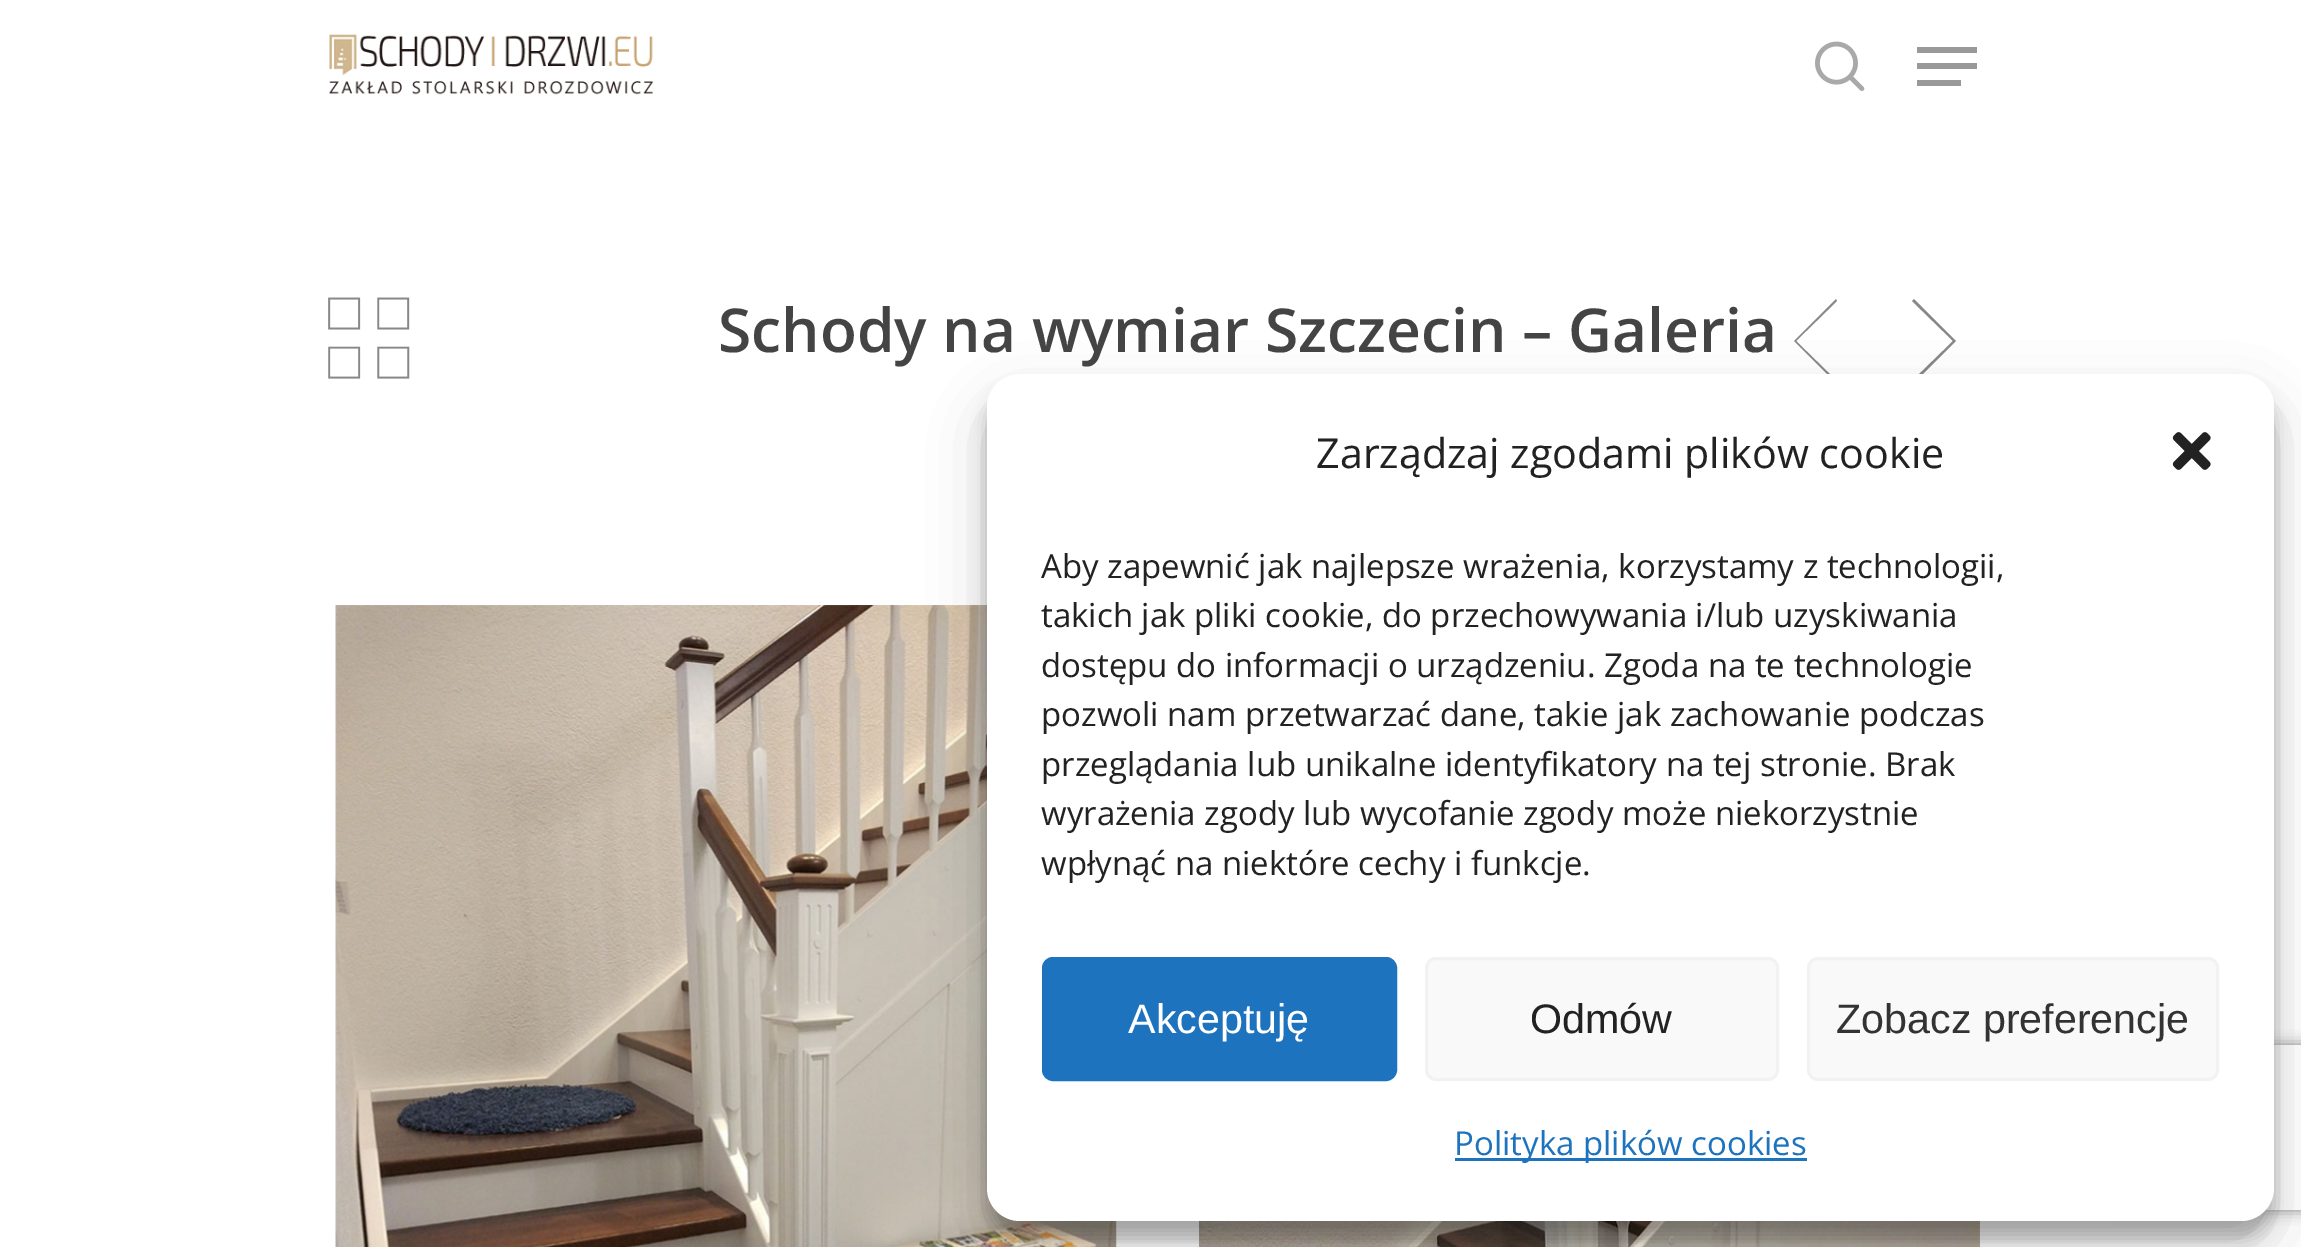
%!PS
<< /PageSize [2301 1247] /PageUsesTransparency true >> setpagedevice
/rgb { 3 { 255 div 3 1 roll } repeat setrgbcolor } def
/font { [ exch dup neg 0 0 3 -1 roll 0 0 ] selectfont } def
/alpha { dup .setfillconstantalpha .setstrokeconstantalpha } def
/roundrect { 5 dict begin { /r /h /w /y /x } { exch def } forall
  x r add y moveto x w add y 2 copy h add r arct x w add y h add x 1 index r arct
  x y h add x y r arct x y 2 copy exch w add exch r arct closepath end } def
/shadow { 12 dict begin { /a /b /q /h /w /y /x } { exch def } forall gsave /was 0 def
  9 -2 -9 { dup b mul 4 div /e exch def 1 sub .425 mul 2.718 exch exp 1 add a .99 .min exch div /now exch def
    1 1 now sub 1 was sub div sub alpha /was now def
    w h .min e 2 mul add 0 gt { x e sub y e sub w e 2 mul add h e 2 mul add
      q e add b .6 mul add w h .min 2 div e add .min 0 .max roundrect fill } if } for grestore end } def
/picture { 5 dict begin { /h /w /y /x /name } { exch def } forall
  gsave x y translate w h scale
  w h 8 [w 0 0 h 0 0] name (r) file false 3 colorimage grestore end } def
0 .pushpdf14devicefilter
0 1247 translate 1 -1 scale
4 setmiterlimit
255 255 255 rgb
0 0 2301 1247 rectfill
(img/1.rgb) 329 34 325 61 picture
(img/2.rgb) 1815 41 50 50 picture
[
  [1917 47 60 6 153 153 153]
  [1917 80 44 6 153 153 153]
  [1917 63 60 6 153 153 153]
] { aload pop rgb rectfill } forall
(img/3.rgb) 328 297 82 82 picture
136 136 136 rgb
1837 301 moveto 1836 299 lineto 1794 341 lineto 1836 383 lineto 1837 381 lineto 1796 341 lineto closepath fill
1912 301 moveto 1914 299 lineto 1956 341 lineto 1914 383 lineto 1912 381 lineto 1953 341 lineto closepath fill
(img/4.rgb) 335 605 782 642 picture
(img/5.rgb) 1199 1221 781 26 picture
0 0 0 rgb
987 391 1287 847 33 8 0.23 shadow
987 402 1287 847 33 27.5 0.19 shadow
gsave
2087 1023 moveto 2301 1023 lineto 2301 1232 lineto 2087 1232 lineto closepath 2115 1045 moveto 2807 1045 lineto 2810.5 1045 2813 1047.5 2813 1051 curveto 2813 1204 lineto 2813 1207.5 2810.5 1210 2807 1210 curveto 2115 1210 lineto 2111.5 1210 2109 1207.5 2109 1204 curveto 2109 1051 lineto 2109 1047.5 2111.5 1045 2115 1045 curveto closepath eoclip newpath
128 128 128 rgb
2109 1045 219 165 6 7 1 shadow
grestore
255 255 255 rgb
987 374 1287 847 33 roundrect fill
(img/6.rgb) 2172 432 39 38 picture
30 115 190 rgb
1043.5 958.5 352 121 9.5 roundrect gsave fill grestore
3 setlinewidth
stroke
249 249 249 rgb
1426.5 958.5 351 121 9.5 roundrect gsave fill grestore
242 242 242 rgb
stroke
249 249 249 rgb
1808.5 958.5 409 121 9.5 roundrect gsave fill grestore
242 242 242 rgb
stroke
30 115 190 rgb
1455 1158 352 3 rectfill
/OpenSans-SemiBold 60.5 font
68 68 68 rgb
718 352 moveto (Schody na wymiar Szczecin – Galeria) show
/OpenSans-Regular 41.25 font
34 34 34 rgb
1316 468 moveto (Zarządzaj zgodami plików cookie) show
/OpenSans-Regular 33 font
[
  [(Aby zapewnić jak najlepsze wrażenia, korzystamy z technologii,) 1041 578]
  [(takich jak pliki cookie, do przechowywania i/lub uzyskiwania) 1041 627]
  [(dostępu do informacji o urządzeniu. Zgoda na te technologie) 1041 677]
  [(pozwoli nam przetwarzać dane, takie jak zachowanie podczas) 1041 726]
  [(przeglądania lub unikalne identyfikatory na tej stronie. Brak) 1041 776]
  [(wyrażenia zgody lub wycofanie zgody może niekorzystnie) 1041 825]
  [(wpłynąć na niektóre cechy i funkcje.) 1041 875]
] { aload pop moveto show } forall
/LiberationSans-Regular 41.25 font
255 255 255 rgb
1128 1033 moveto (Akceptuję) show
34 34 34 rgb
1530 1033 moveto (Odmów) show
51 51 51 rgb
1836 1033 moveto (Zobacz preferencje) show
/OpenSans-Regular 33 font
30 115 190 rgb
1454 1155 moveto (Polityka plików cookies) show
.poppdf14devicefilter showpage
